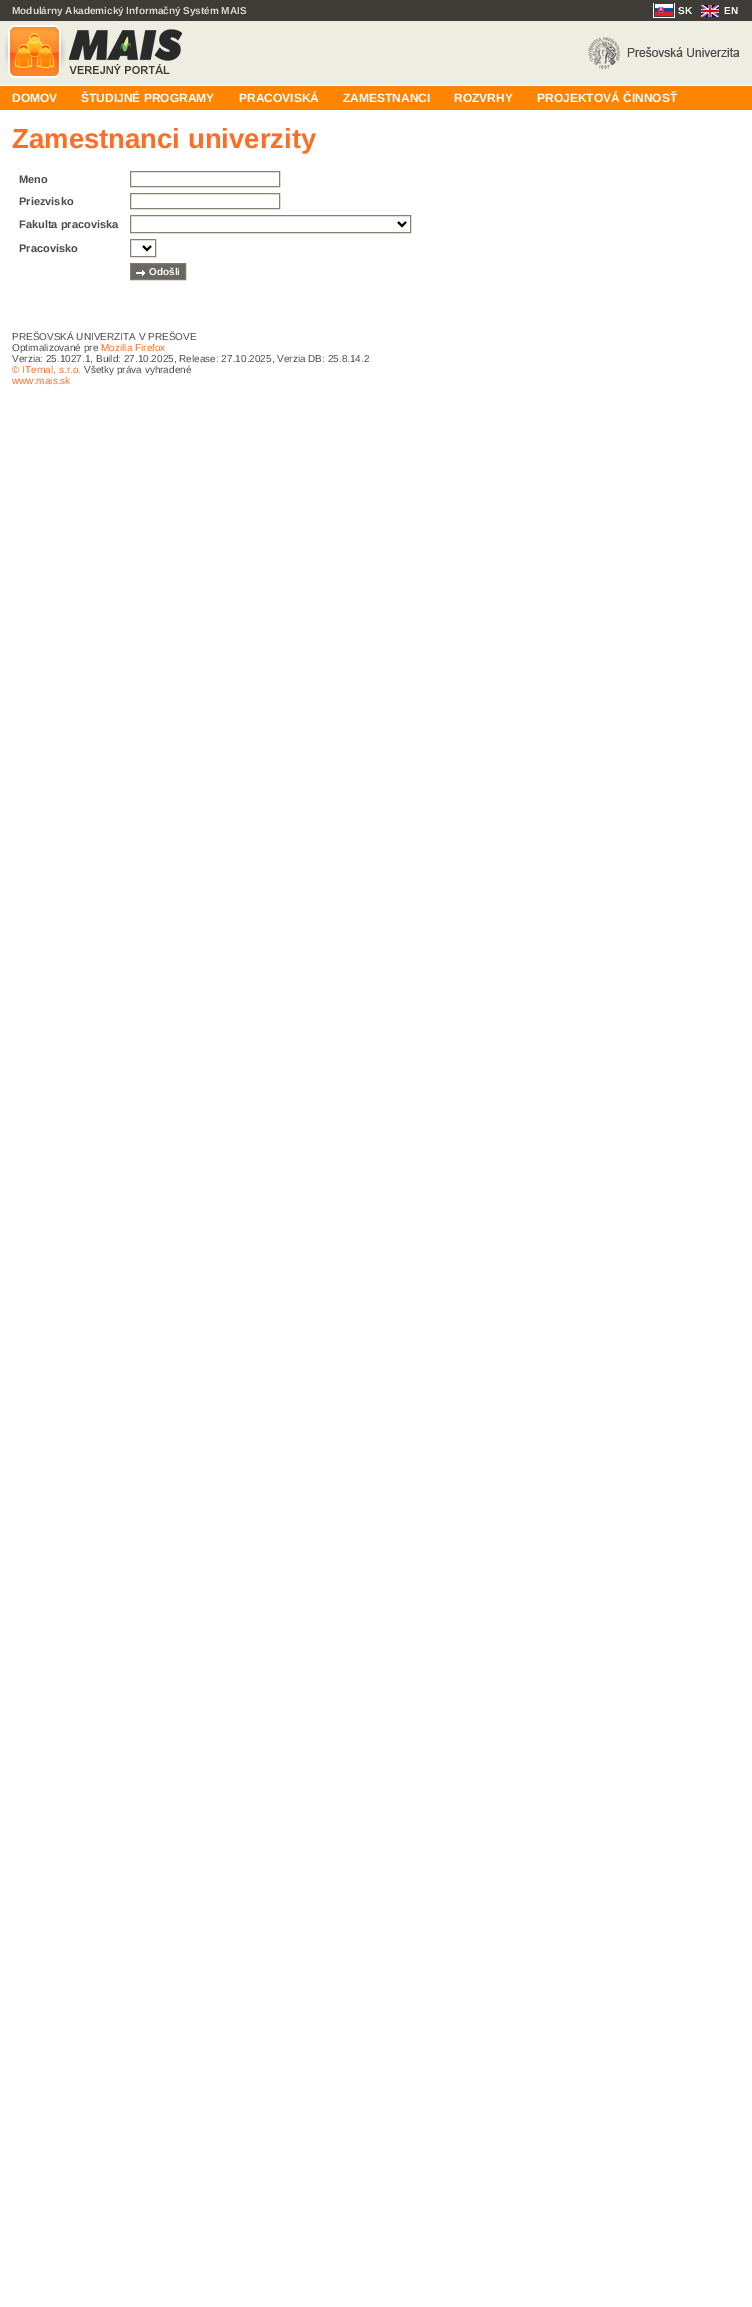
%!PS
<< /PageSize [752 2307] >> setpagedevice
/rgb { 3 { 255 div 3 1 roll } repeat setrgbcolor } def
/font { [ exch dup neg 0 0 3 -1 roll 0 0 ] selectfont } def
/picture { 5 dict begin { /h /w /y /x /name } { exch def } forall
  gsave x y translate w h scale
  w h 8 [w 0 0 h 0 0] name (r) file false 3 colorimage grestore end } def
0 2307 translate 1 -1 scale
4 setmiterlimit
255 255 255 rgb
0 0 752 2307 rectfill
62 60 55 rgb
0 0 752 21 rectfill
(img/1.rgb) 653 3 22 15 picture
(img/2.rgb) 701 5 18 12 picture
238 237 225 rgb
0 21 752 64 rectfill
(img/3.rgb) 4 25 178 53 picture
(img/4.rgb) 588 37 152 32 picture
255 132 0 rgb
0 86 752 24 rectfill
132 130 115 rgb
130.5 171.5 149 15 rectstroke
130.5 193.5 149 15 rectstroke
130.5 215.5 280 17 rectstroke
0 0 0 rgb
2 setlinewidth
398 222 moveto 402 226 lineto 406 222 lineto stroke
132 130 115 rgb
1 setlinewidth
130.5 239.5 25 17 rectstroke
0 0 0 rgb
2 setlinewidth
143 246 moveto 147 250 lineto 151 246 lineto stroke
105 103 96 rgb
131 264 54 15 rectfill
(img/5.rgb) 136 270 9 6 picture
124 122 116 rgb
1 setlinewidth
130.5 263.5 55 16 rectstroke
/LiberationSans-Bold 10 font
219 217 211 rgb
12 14 moveto (Modulárny Akademický Informačný Systém MAIS) show
255 255 255 rgb
678 14 moveto (SK) show
724 14 moveto (EN) show
/LiberationSans-Bold 12 font
[
  [(DOMOV) 12 102]
  [(ŠTUDIJNÉ PROGRAMY) 81 102]
  [(PRACOVISKÁ) 239 102]
  [(ZAMESTNANCI) 343 102]
  [(ROZVRHY) 454 102]
  [(PROJEKTOVÁ ČINNOSŤ) 537 102]
] { aload pop moveto show } forall
/LiberationSans-Bold 27.5 font
255 109 36 rgb
12 148 moveto (Zamestnanci univerzity) show
/LiberationSans-Bold 11 font
76 76 76 rgb
[
  [(Meno) 19 183]
  [(Priezvisko) 19 205]
  [(Fakulta pracoviska) 19 228]
  [(Pracovisko) 19 252]
] { aload pop moveto show } forall
/LiberationSans-Bold 10 font
255 255 255 rgb
149 275 moveto (Odošli) show
/LiberationSans-Regular 10 font
76 76 76 rgb
12 340 moveto (PREŠOVSKÁ UNIVERZITA V PREŠOVE) show
12 351 moveto (Optimalizované pre) show
255 109 36 rgb
101 351 moveto (Mozilla Firefox) show
76 76 76 rgb
12 362 moveto (Verzia: 25.1027.1, Build: 27.10.2025, Release: 27.10.2025, Verzia DB: 25.8.14.2) show
255 109 36 rgb
12 373 moveto (© ITernal, s.r.o.) show
76 76 76 rgb
84 373 moveto (Všetky práva vyhradené) show
255 109 36 rgb
12 384 moveto (www.mais.sk) show
showpage
